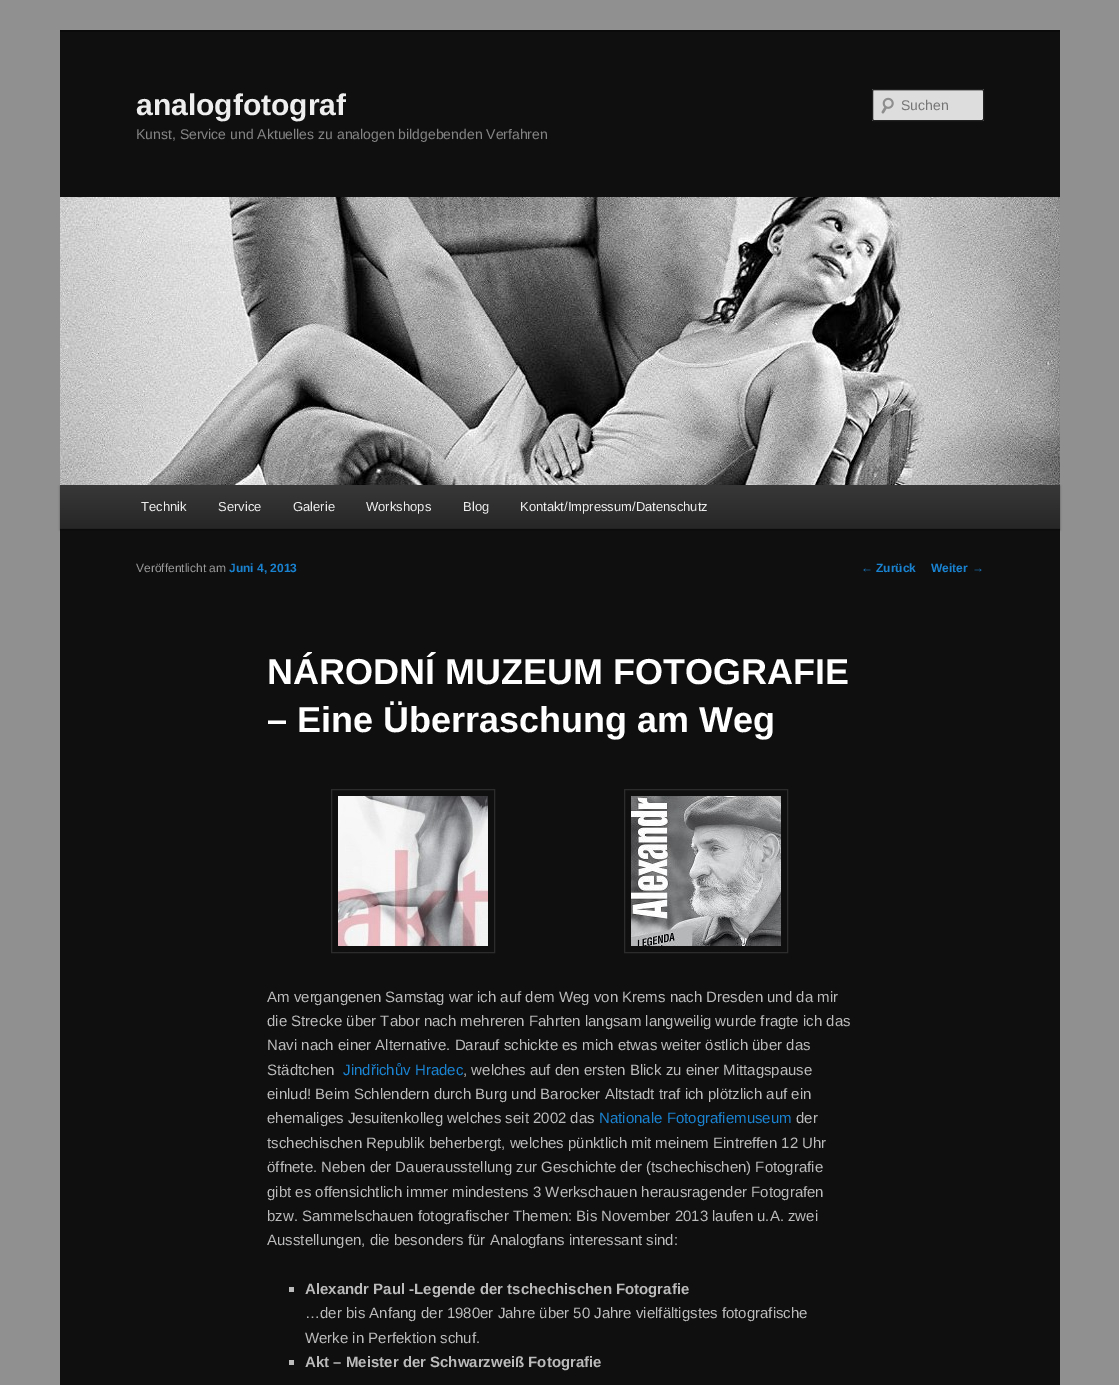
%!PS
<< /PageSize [1119 1385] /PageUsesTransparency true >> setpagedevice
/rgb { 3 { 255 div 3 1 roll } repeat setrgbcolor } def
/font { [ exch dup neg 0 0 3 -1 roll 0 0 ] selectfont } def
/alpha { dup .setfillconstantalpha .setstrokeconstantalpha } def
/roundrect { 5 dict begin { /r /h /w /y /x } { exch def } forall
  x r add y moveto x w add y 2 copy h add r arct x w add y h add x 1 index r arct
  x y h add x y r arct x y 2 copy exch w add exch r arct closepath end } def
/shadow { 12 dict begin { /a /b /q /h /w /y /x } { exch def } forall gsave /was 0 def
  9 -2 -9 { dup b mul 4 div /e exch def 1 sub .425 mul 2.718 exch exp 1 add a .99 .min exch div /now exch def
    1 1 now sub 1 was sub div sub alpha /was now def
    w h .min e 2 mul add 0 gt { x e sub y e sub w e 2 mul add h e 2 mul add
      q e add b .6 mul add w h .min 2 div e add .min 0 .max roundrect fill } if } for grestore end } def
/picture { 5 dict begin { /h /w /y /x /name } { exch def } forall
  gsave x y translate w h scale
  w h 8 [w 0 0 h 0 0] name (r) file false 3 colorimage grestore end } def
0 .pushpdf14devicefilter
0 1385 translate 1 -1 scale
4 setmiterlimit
144 144 144 rgb
0 0 1119 1385 rectfill
15 15 15 rgb
60 32 1000 1353 rectfill
10 10 10 rgb
60 30 1000 2 rectfill
221 221 221 rgb
872 89 112 32 2 roundrect fill
(img/1.rgb) 881 97 13 17 picture
0.1 alpha
0 0 0 rgb
874 91 moveto 983 91 lineto 983 92 lineto 982 90 lineto 892 90 lineto 888 90 873 85 873 92 curveto 873 91 873 91 874 91 curveto closepath fill
1 alpha
34 34 34 rgb
872.5 89.5 111 31 1.5 roundrect stroke
0 0 0 rgb
60 486 1000 44 0 1 0.4 shadow
(img/2.rgb) 60 197 1000 288 picture
gsave 60 485 moveto 1060 485 lineto 1060 528 lineto 60 528 lineto closepath clip newpath
<< /ShadingType 2 /ColorSpace /DeviceRGB /Coords [560 485 560 528] /Extend [true true] /Function << /FunctionType 2 /Domain [0 1] /C0 [0.22 0.22 0.22] /C1 [0.153 0.153 0.153] /N 1 >> >> shfill grestore
34 34 34 rgb
60 528 1000 1 rectfill
44 44 44 rgb
331.5 789.5 163 163 rectstroke
(img/3.rgb) 338 796 150 150 picture
624.5 789.5 163 163 rectstroke
(img/4.rgb) 631 796 150 150 picture
187 187 187 rgb
289 1287 5 5 rectfill
289 1360 5 5 rectfill
/LiberationSans-Bold 30 font
238 238 238 rgb
136 115 moveto (analogfotograf) show
/LiberationSans-Regular 14 font
133 133 133 rgb
136 139 moveto (Kunst, Service und Aktuelles zu analogen bildgebenden Verfahren) show
117 117 117 rgb
901 110 moveto (Suchen) show
/LiberationSans-Regular 13 font
238 238 238 rgb
[
  [(Technik) 141 511]
  [(Service) 218 511]
  [(Galerie) 293 511]
  [(Workshops) 366 511]
  [(Blog) 463 511]
  [(Kontakt/Impressum/Datenschutz) 520 511]
] { aload pop moveto show } forall
/LiberationSans-Regular 12 font
153 153 153 rgb
136 572 moveto (Veröffentlicht am) show
/LiberationSans-Bold 12 font
25 130 209 rgb
229 572 moveto (Juni 4, 2013) show
/LiberationSans-Bold 36 font
255 255 255 rgb
267 684 moveto (NÁRODNÍ MUZEUM FOTOGRAFIE) show
267 732 moveto (– Eine Überraschung am Weg) show
/LiberationSans-Regular 15 font
187 187 187 rgb
[
  [(Am vergangenen Samstag war ich auf dem Weg von Krems nach Dresden und da mir) 267 1002]
  [(die Strecke über Tabor nach mehreren Fahrten langsam langweilig wurde fragte ich das) 267 1026]
  [(Navi nach einer Alternative. Darauf schickte es mich etwas weiter östlich über das) 267 1050]
  [(Städtchen) 267 1075]
] { aload pop moveto show } forall
25 130 209 rgb
343 1075 moveto (Jindřichův Hradec) show
187 187 187 rgb
[
  [(, welches auf den ersten Blick zu einer Mittagspause) 463 1075]
  [(einlud! Beim Schlendern durch Burg und Barocker Altstadt traf ich plötzlich auf ein) 267 1099]
  [(ehemaliges Jesuitenkolleg welches seit 2002 das) 267 1123]
] { aload pop moveto show } forall
25 130 209 rgb
599 1123 moveto (Nationale Fotografiemuseum) show
187 187 187 rgb
[
  [(der) 796 1123]
  [(tschechischen Republik beherbergt, welches pünktlich mit meinem Eintreffen 12 Uhr) 267 1148]
  [(öffnete. Neben der Dauerausstellung zur Geschichte der \(tschechischen\) Fotografie) 267 1172]
  [(gibt es offensichtlich immer mindestens 3 Werkschauen herausragender Fotografen) 267 1197]
  [(bzw. Sammelschauen fotografischer Themen: Bis November 2013 laufen u.A. zwei) 267 1221]
  [(Ausstellungen, die besonders für Analogfans interessant sind:) 267 1245]
] { aload pop moveto show } forall
/LiberationSans-Bold 15 font
305 1294 moveto (Alexandr Paul -Legende der tschechischen Fotografie) show
/LiberationSans-Regular 15 font
305 1318 moveto (…der bis Anfang der 1980er Jahre über 50 Jahre vielfältigstes fotografische) show
305 1343 moveto (Werke in Perfektion schuf.) show
/LiberationSans-Bold 15 font
305 1367 moveto (Akt – Meister der Schwarzweiß Fotografie) show
/LiberationSans-Regular 12 font
25 130 209 rgb
861 572 moveto (←) show
/LiberationSans-Bold 12 font
876 572 moveto (Zurück) show
931 572 moveto (Weiter) show
/LiberationSans-Regular 12 font
972 572 moveto (→) show
.poppdf14devicefilter showpage
